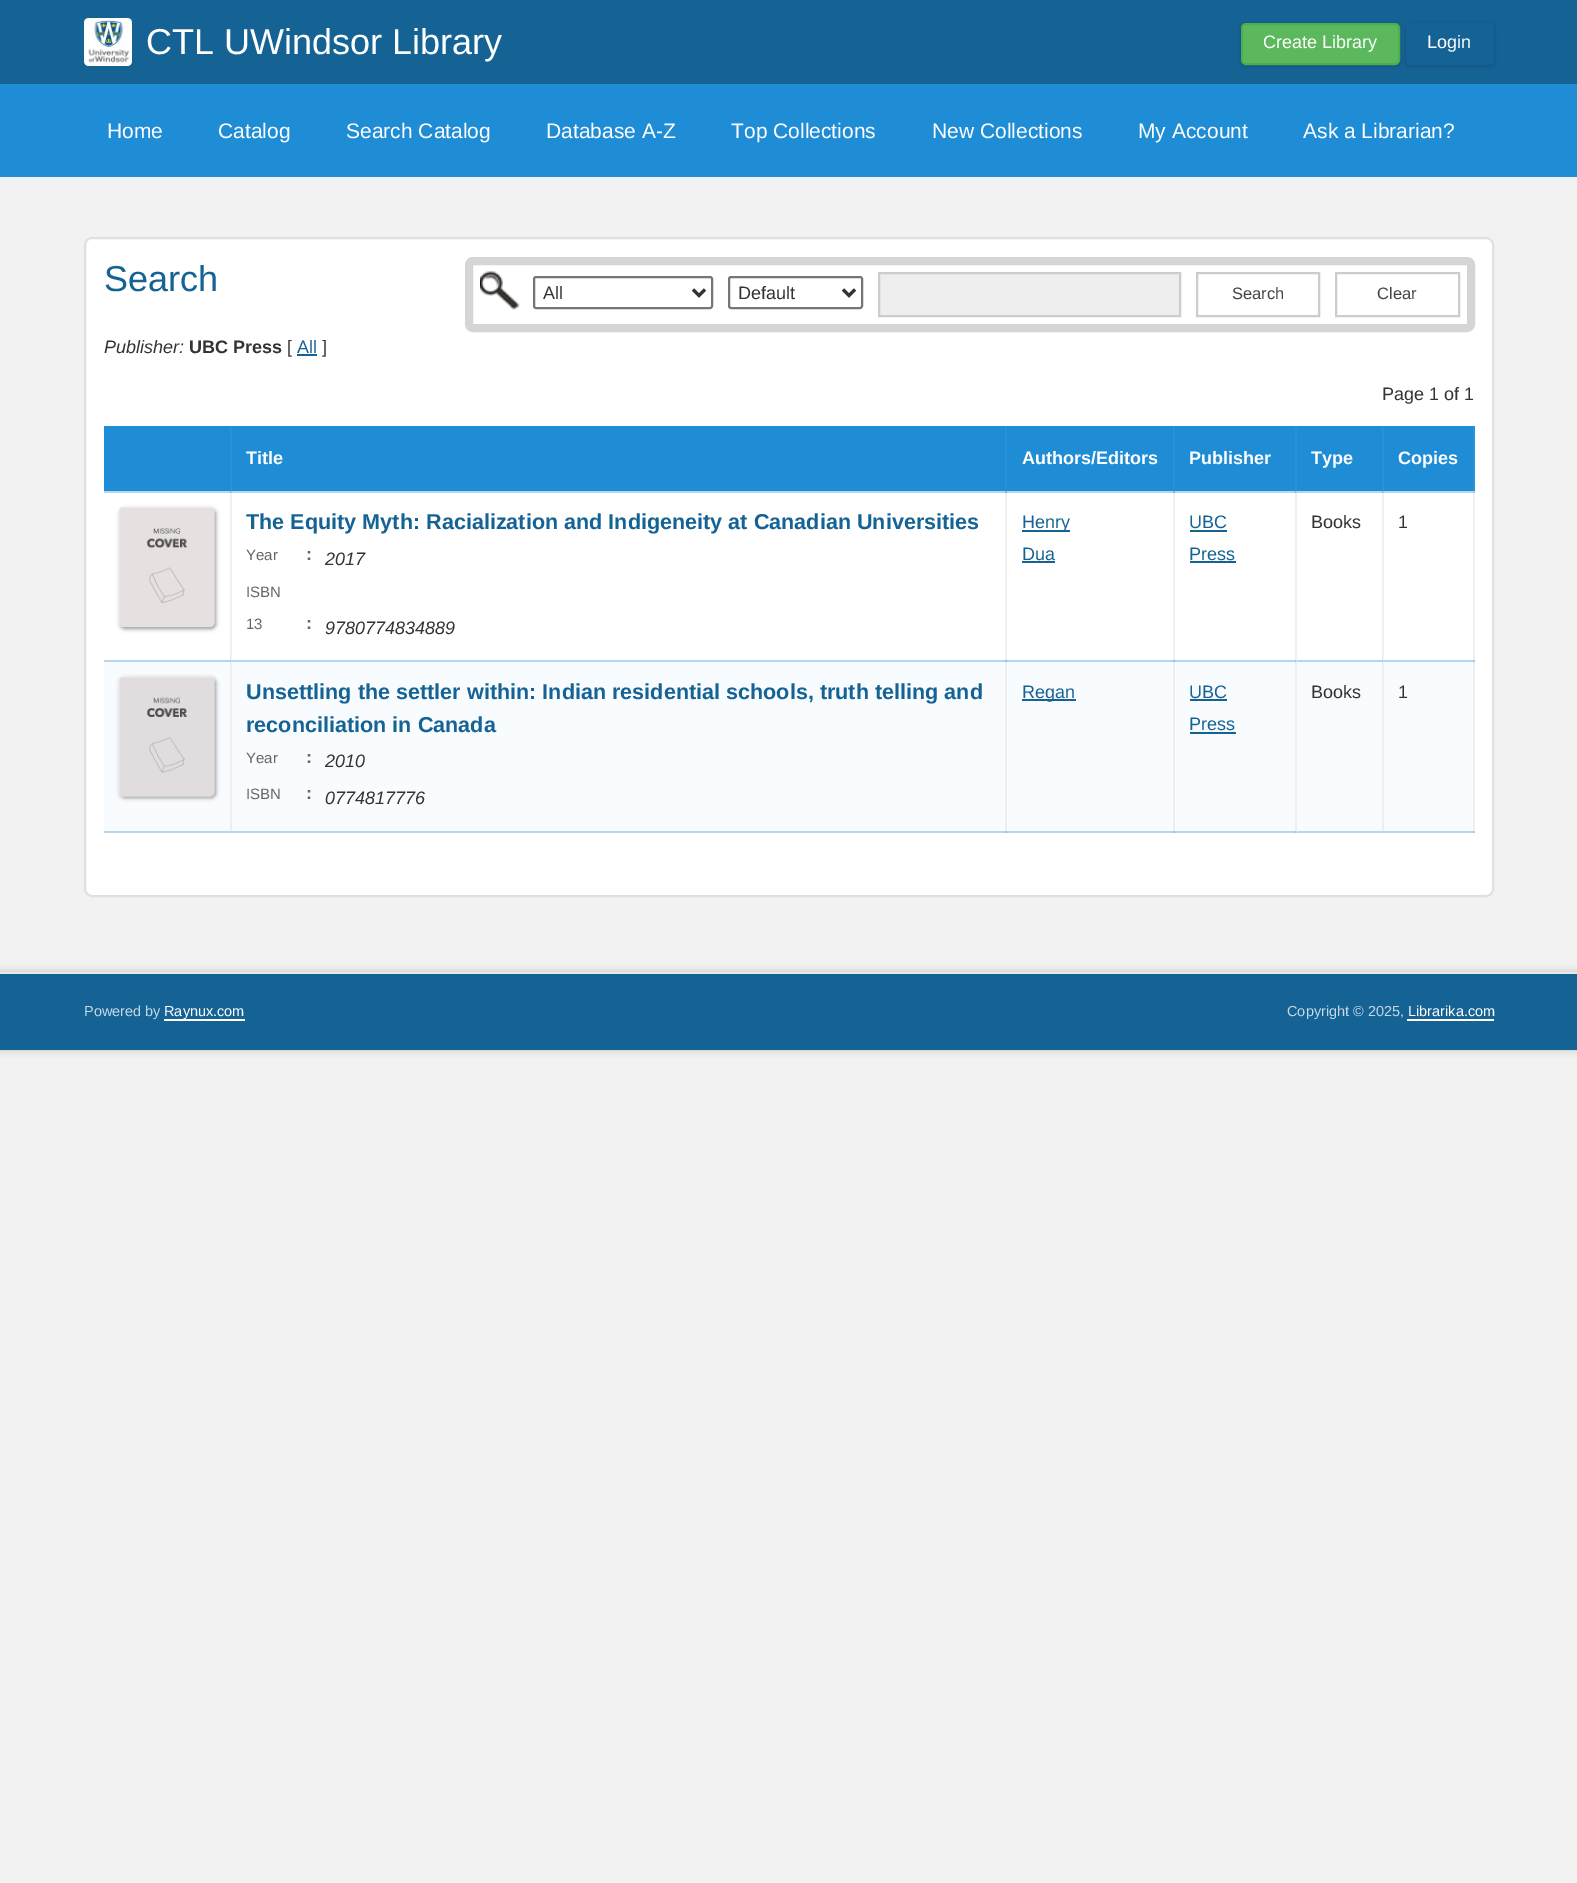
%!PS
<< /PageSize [1577 1883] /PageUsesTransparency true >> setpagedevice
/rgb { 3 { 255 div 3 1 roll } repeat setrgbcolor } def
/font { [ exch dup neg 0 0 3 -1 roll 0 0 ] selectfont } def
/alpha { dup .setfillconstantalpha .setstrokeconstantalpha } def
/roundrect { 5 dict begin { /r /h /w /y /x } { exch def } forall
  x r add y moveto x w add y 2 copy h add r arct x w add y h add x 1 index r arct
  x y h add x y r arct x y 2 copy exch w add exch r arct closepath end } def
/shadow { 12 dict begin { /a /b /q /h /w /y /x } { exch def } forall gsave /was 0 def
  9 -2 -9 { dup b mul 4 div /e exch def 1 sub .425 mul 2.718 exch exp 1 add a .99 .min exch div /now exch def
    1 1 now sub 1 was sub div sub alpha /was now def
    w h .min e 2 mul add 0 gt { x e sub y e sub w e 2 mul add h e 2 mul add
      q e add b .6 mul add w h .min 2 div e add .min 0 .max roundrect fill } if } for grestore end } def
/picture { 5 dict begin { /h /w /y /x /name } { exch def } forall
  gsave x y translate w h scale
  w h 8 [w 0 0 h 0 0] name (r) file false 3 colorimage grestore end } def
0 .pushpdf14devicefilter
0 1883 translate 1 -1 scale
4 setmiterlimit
242 242 242 rgb
0 0 1577 1883 rectfill
21 98 149 rgb
0 0 1577 84 rectfill
(img/1.rgb) 84 18 48 48 picture
0 0 0 rgb
1241 24 159 42 5 2 0.2 shadow
92 184 92 rgb
1242 24 157 40 4 roundrect gsave fill grestore
76 174 76 rgb
2 setlinewidth
stroke
0 0 0 rgb
1406 24 88 42 5 2 0.2 shadow
21 98 149 rgb
1407 24 86 40 4 roundrect gsave fill grestore
stroke
31 141 214 rgb
0 84 1577 93 rectfill
255 255 255 rgb
84 237 1410 660 8 roundrect fill
[
  [104 491 1371 2 177 215 241]
  [104 660 127 2 177 215 241]
  [230 491 2 171 240 240 240]
  [230 492 2 1 167 205 231]
  [230 491 1 2 119 183 225]
  [230 491 2 1 170 206 231]
  [230 491 1 1 121 183 225]
  [230 660 777 2 177 215 241]
  [1005 491 2 171 240 240 240]
  [1005 492 2 1 119 183 225]
  [1005 491 2 1 121 183 225]
  [1005 660 170 2 177 215 241]
  [1173 491 2 171 240 240 240]
  [1173 492 2 1 119 183 225]
  [1173 491 2 1 121 183 225]
  [1173 660 123 2 177 215 241]
  [1295 491 2 171 240 240 240]
  [1295 492 2 1 167 205 231]
  [1295 491 1 2 119 183 225]
  [1295 491 2 1 170 206 231]
  [1295 491 1 1 121 183 225]
  [1295 660 88 2 177 215 241]
  [1382 491 2 171 240 240 240]
  [1382 492 2 1 167 205 231]
  [1382 491 1 2 119 183 225]
  [1382 491 2 1 170 206 231]
  [1382 491 1 1 121 183 225]
  [1382 660 93 2 177 215 241]
  [1473 491 2 171 240 240 240]
  [1473 491 2 2 167 205 231]
  [104 831 1371 2 177 215 241]
  [230 660 2 2 209 223 232]
  [230 660 1 2 147 194 226]
  [230 831 2 2 213 226 235]
  [230 831 1 2 149 196 228]
  [1005 660 2 2 147 194 226]
  [1005 831 2 2 149 196 228]
  [1173 660 2 2 147 194 226]
  [1173 831 2 2 149 196 228]
  [1295 660 2 2 209 223 232]
  [1295 660 1 2 147 194 226]
  [1295 831 2 2 213 226 235]
  [1295 831 1 2 149 196 228]
  [1382 660 2 2 209 223 232]
  [1382 660 1 2 147 194 226]
  [1382 831 2 2 213 226 235]
  [1382 831 1 2 149 196 228]
  [1473 660 2 2 164 202 228]
  [1473 831 2 2 167 205 231]
] { aload pop rgb rectfill } forall
224 224 224 rgb
85 238 1408 658 7 roundrect stroke
213 213 213 rgb
8 setlinewidth
469 261 1002 67 4 roundrect stroke
(img/2.rgb) 480 271 40 39 picture
118 118 118 rgb
2 setlinewidth
534 277 178 31 2 roundrect stroke
51 51 51 rgb
3 setlinewidth
693 289.5 moveto 699 295.5 lineto 705 289.5 lineto stroke
118 118 118 rgb
2 setlinewidth
729 277 133 31 2 roundrect stroke
51 51 51 rgb
3 setlinewidth
843 289.5 moveto 849 295.5 lineto 855 289.5 lineto stroke
238 238 238 rgb
879 273 moveto 1180 273 lineto 1180 316 lineto 879 316 lineto closepath gsave fill grestore
204 204 204 rgb
2 setlinewidth
stroke
1197 273 122 43 rectstroke
1336 273 123 43 rectstroke
[
  [297 354 20 2 21 98 149]
  [104 426 1371 2 31 141 214]
  [230 426 2 2 41 146 215]
  [1005 426 2 2 41 146 215]
  [1173 426 2 2 41 146 215]
  [1295 426 2 2 41 146 215]
  [1382 426 2 2 41 146 215]
  [1473 426 2 2 41 146 215]
  [104 428 126 63 31 141 214]
  [230 428 2 63 41 146 215]
  [232 428 773 63 31 141 214]
  [1005 428 2 63 41 146 215]
  [1007 428 166 63 31 141 214]
  [1175 428 120 63 31 141 214]
  [1173 428 2 63 41 146 215]
  [1295 428 2 63 41 146 215]
  [1297 428 85 63 31 141 214]
  [1384 428 89 63 31 141 214]
  [1382 428 2 63 41 146 215]
  [1473 428 2 63 41 146 215]
] { aload pop rgb rectfill } forall
gsave
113 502 moveto 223 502 lineto 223 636 lineto 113 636 lineto closepath 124 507 moveto 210 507 lineto 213 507 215 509 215 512 curveto 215 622 lineto 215 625 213 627 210 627 curveto 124 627 lineto 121 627 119 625 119 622 curveto 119 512 lineto 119 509 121 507 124 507 curveto closepath eoclip newpath
153 153 153 rgb
120 509 96 120 5 2 1 shadow
grestore
(img/3.rgb) 118 507 97 120 picture
[
  [1022 530 48 2 21 98 149]
  [1022 561 33 2 21 98 149]
  [1190 530 37 2 21 98 149]
  [1190 561 46 2 21 98 149]
  [104 662 1369 169 249 252 254]
  [230 662 2 169 238 239 240]
  [1005 662 2 169 238 239 240]
  [1173 662 2 169 238 239 240]
  [1295 662 2 169 238 239 240]
  [1382 662 2 169 238 239 240]
  [1473 662 2 169 238 239 240]
] { aload pop rgb rectfill } forall
gsave
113 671 moveto 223 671 lineto 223 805 lineto 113 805 lineto closepath 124 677 moveto 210 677 lineto 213 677 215 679 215 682 curveto 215 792 lineto 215 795 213 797 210 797 curveto 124 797 lineto 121 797 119 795 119 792 curveto 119 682 lineto 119 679 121 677 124 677 curveto closepath eoclip newpath
153 153 153 rgb
120 678 96 120 5 2 1 shadow
grestore
(img/4.rgb) 118 676 97 121 picture
[
  [1022 699 54 2 21 98 149]
  [1190 699 37 2 21 98 149]
  [1190 732 46 2 21 98 149]
] { aload pop rgb rectfill } forall
0 0 0 rgb
0 972 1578 78 0 4 0.2 shadow
[
  [0 974 1577 76 21 98 149]
  [0 972 1577 2 232 232 232]
  [164 1019 81 2 255 255 255]
  [1407 1019 87 2 255 255 255]
] { aload pop rgb rectfill } forall
/LiberationSans-Regular 36 font
146 54 moveto (CTL UWindsor Library) show
/LiberationSans-Regular 18 font
1263 48 moveto (Create Library) show
1427 48 moveto (Login) show
/LiberationSans-Regular 21 font
[
  [(Home) 107 138]
  [(Catalog) 218 138]
  [(Search Catalog) 346 138]
  [(Database A-Z) 546 138]
  [(Top Collections) 731 138]
  [(New Collections) 932 138]
  [(My Account) 1138 138]
  [(Ask a Librarian?) 1303 138]
] { aload pop moveto show } forall
/LiberationSans-Regular 36 font
21 98 149 rgb
104 291 moveto (Search) show
/LiberationSans-Regular 18 font
51 51 51 rgb
543 299 moveto (All) show
738 299 moveto (Default) show
/LiberationSans-Regular 16.5 font
68 68 68 rgb
1232 299 moveto (Search) show
1377 299 moveto (Clear) show
/LiberationSans-Italic 18 font
51 51 51 rgb
104 353 moveto (Publisher:) show
/LiberationSans-Bold 18 font
189 353 moveto (UBC Press) show
/LiberationSans-Regular 18 font
287 353 moveto ([) show
21 98 149 rgb
297 353 moveto (All) show
51 51 51 rgb
322 353 moveto (]) show
1382 400 moveto (Page 1 of 1) show
/LiberationSans-Bold 18 font
255 255 255 rgb
[
  [(Title) 246 464]
  [(Authors/Editors) 1022 464]
  [(Publisher) 1189 464]
  [(Type) 1311 464]
  [(Copies) 1398 464]
] { aload pop moveto show } forall
/LiberationSans-Bold 21.6 font
21 98 149 rgb
246 529 moveto (The Equity Myth: Racialization and Indigeneity at Canadian Universities) show
/LiberationSans-Regular 15 font
102 102 102 rgb
246 560 moveto (Year) show
/LiberationSans-Bold 18 font
306 560 moveto (:) show
/LiberationSans-Italic 18 font
51 51 51 rgb
325 565 moveto (2017) show
/LiberationSans-Regular 15 font
102 102 102 rgb
246 597 moveto (ISBN) show
246 629 moveto (13) show
/LiberationSans-Bold 18 font
306 629 moveto (:) show
/LiberationSans-Italic 18 font
51 51 51 rgb
325 634 moveto (9780774834889) show
/LiberationSans-Regular 18 font
21 98 149 rgb
[
  [(Henry) 1022 528]
  [(Dua) 1022 560]
  [(UBC) 1189 528]
  [(Press) 1189 560]
] { aload pop moveto show } forall
51 51 51 rgb
1311 528 moveto (Books) show
1398 528 moveto (1) show
/LiberationSans-Bold 21.6 font
21 98 149 rgb
246 699 moveto (Unsettling the settler within: Indian residential schools, truth telling and) show
246 732 moveto (reconciliation in Canada) show
/LiberationSans-Regular 15 font
102 102 102 rgb
246 763 moveto (Year) show
/LiberationSans-Bold 18 font
306 763 moveto (:) show
/LiberationSans-Italic 18 font
51 51 51 rgb
325 767 moveto (2010) show
/LiberationSans-Regular 15 font
102 102 102 rgb
246 799 moveto (ISBN) show
/LiberationSans-Bold 18 font
306 799 moveto (:) show
/LiberationSans-Italic 18 font
51 51 51 rgb
325 804 moveto (0774817776) show
/LiberationSans-Regular 18 font
21 98 149 rgb
[
  [(Regan) 1022 698]
  [(UBC) 1189 698]
  [(Press) 1189 730]
] { aload pop moveto show } forall
51 51 51 rgb
1311 698 moveto (Books) show
1398 698 moveto (1) show
/LiberationSans-Regular 14.5 font
197 216 229 rgb
84 1016 moveto (Powered by) show
255 255 255 rgb
164 1016 moveto (Raynux.com) show
197 216 229 rgb
1287 1016 moveto (Copyright © 2025,) show
255 255 255 rgb
1408 1016 moveto (Librarika.com) show
.poppdf14devicefilter showpage
